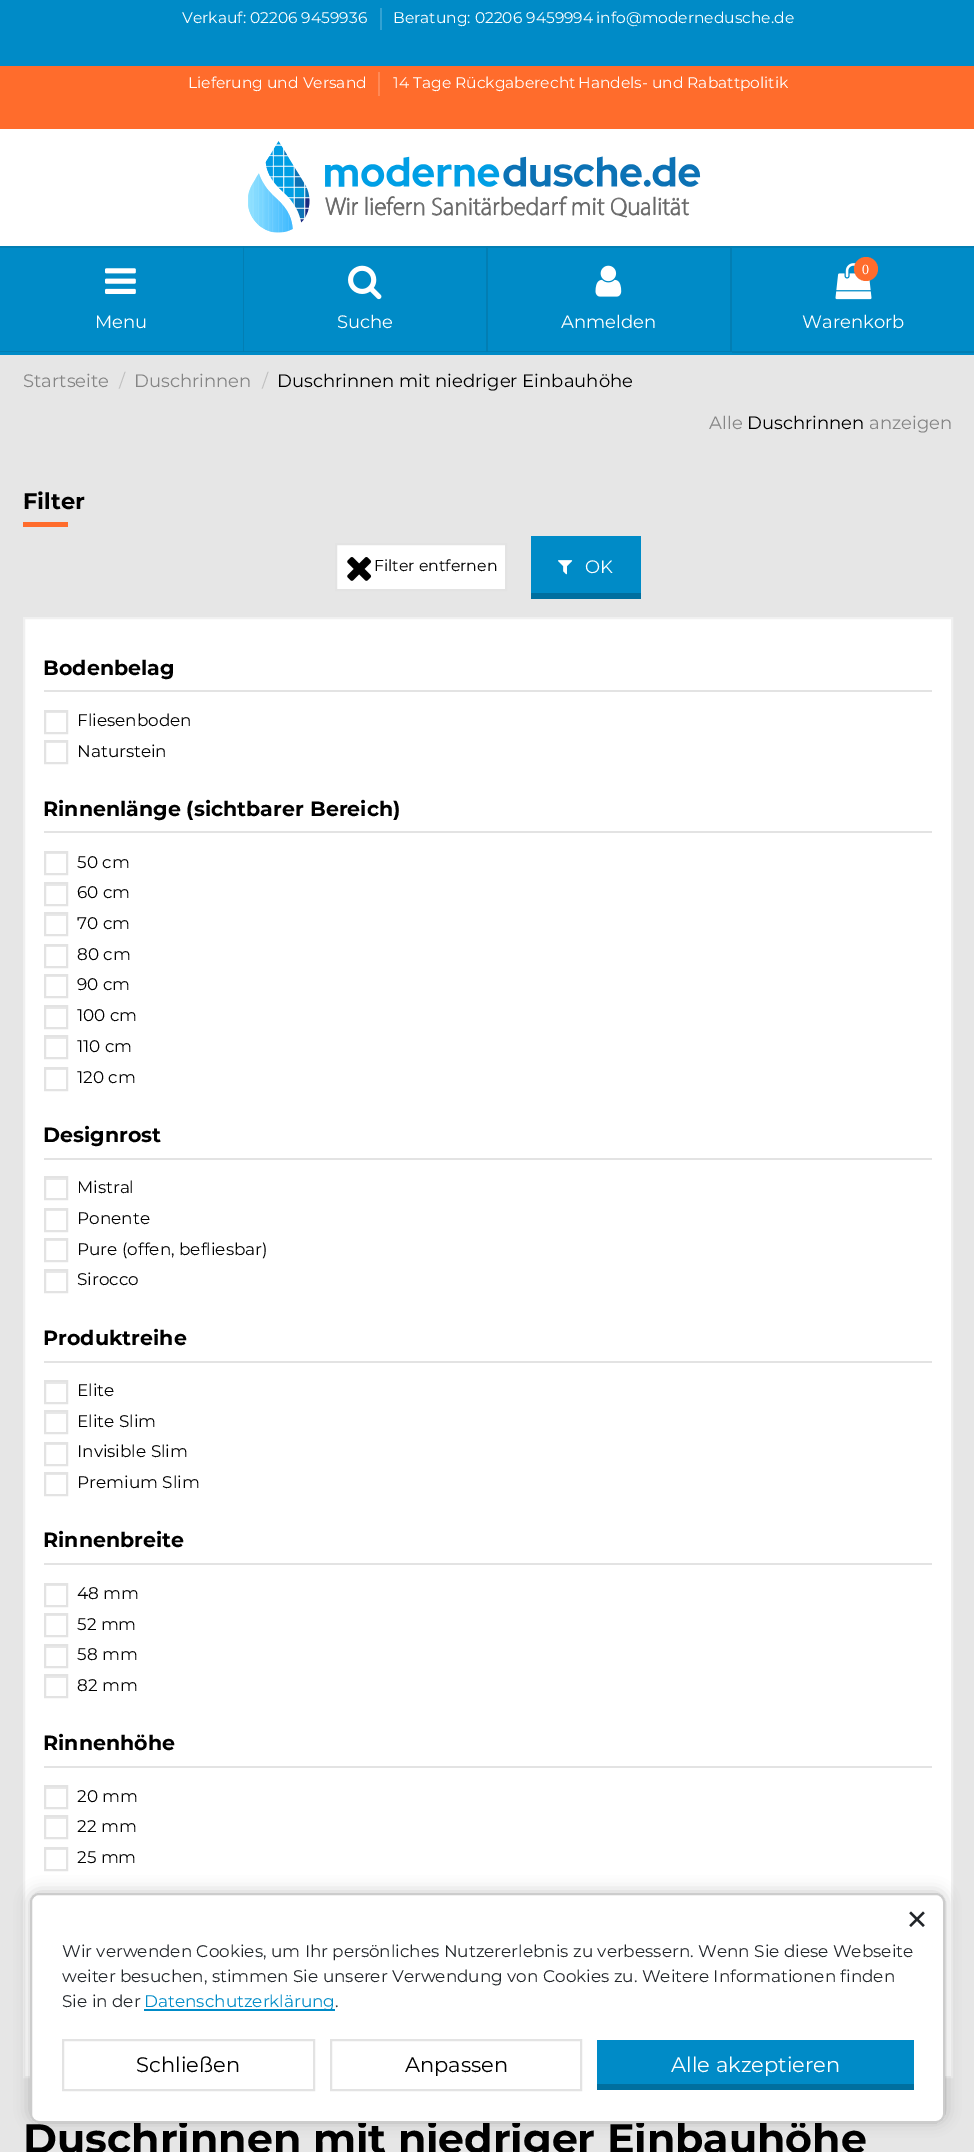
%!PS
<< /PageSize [974 2152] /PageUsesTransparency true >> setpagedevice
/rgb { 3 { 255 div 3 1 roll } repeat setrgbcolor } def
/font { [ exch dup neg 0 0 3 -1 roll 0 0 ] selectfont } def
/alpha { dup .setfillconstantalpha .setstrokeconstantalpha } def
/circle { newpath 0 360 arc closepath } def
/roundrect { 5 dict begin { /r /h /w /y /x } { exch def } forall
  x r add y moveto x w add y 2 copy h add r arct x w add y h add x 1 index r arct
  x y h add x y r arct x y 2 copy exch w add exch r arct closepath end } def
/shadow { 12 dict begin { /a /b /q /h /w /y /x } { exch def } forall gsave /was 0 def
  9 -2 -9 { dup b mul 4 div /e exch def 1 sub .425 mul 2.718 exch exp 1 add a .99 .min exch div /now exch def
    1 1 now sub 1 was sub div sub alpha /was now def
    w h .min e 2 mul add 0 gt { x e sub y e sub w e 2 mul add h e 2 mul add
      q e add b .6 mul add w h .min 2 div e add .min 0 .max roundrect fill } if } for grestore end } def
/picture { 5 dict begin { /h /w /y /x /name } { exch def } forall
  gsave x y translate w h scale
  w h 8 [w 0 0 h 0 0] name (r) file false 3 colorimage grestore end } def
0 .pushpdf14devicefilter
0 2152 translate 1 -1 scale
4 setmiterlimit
230 230 230 rgb
0 0 974 2152 rectfill
[
  [0 0 974 66 0 139 199]
  [380 8 2 22 51 162 210]
  [0 66 974 63 255 108 44]
  [378 72 2 24 255 137 86]
  [0 129 974 117 255 255 255]
  [0 246 974 109 0 139 199]
] { aload pop rgb rectfill } forall
(img/1.rgb) 248 141 453 92 picture
2 126 179 rgb
0 246 moveto 244 246 lineto 243 248 lineto 0 248 lineto closepath fill
0.11 alpha
21 21 21 rgb
244 246 moveto 244 352 lineto 243 351 lineto 243 248 lineto closepath fill
244 352 moveto 0 352 lineto 0 351 lineto 243 351 lineto closepath fill
1 alpha
(img/2.rgb) 105 268 31 26 picture
2 126 179 rgb
244 246 moveto 488 246 lineto 486 248 lineto 244 248 lineto closepath fill
0.11 alpha
21 21 21 rgb
488 246 moveto 488 352 lineto 486 351 lineto 486 248 lineto closepath fill
488 352 moveto 244 352 lineto 244 351 lineto 486 351 lineto closepath fill
1 alpha
(img/3.rgb) 348 265 34 35 picture
2 126 179 rgb
488 246 moveto 732 246 lineto 730 248 lineto 488 248 lineto closepath fill
0.11 alpha
21 21 21 rgb
732 246 moveto 732 352 lineto 730 351 lineto 730 248 lineto closepath fill
732 352 moveto 488 352 lineto 488 351 lineto 730 351 lineto closepath fill
1 alpha
(img/4.rgb) 595 265 27 32 picture
2 126 179 rgb
732 246 242 2 rectfill
732 351 242 2 rectfill
(img/5.rgb) 835 263 37 37 picture
255 108 44 rgb
866 269 12 circle fill
23 522 45 5 rectfill
255 255 255 rgb
336 544 moveto 506 544 lineto 506 590 lineto 336 590 lineto closepath gsave fill grestore
227 227 227 rgb
2 setlinewidth
stroke
(img/6.rgb) 347 557 25 24 picture
0 139 199 rgb
531 536 110 57 rectfill
0 111 159 rgb
531 593 110 6 rectfill
(img/7.rgb) 558 560 15 15 picture
255 255 255 rgb
24 618 moveto 952 618 lineto 952 2077 lineto 24 2077 lineto closepath gsave fill grestore
240 240 240 rgb
stroke
227 227 227 rgb
44 690 888 2 rectfill
232 232 232 rgb
45 712 21 1 rectfill
227 227 227 rgb
45 711 22 22 rectstroke
232 232 232 rgb
45 742 21 1 rectfill
227 227 227 rgb
45 741 22 22 rectstroke
44 831 888 2 rectfill
232 232 232 rgb
45 853 21 1 rectfill
227 227 227 rgb
45 852 22 22 rectstroke
232 232 232 rgb
45 884 21 2 rectfill
227 227 227 rgb
45 883 22 22 rectstroke
232 232 232 rgb
45 914 21 2 rectfill
227 227 227 rgb
45 913 22 22 rectstroke
232 232 232 rgb
45 946 21 1 rectfill
227 227 227 rgb
45 945 22 22 rectstroke
232 232 232 rgb
45 976 21 1 rectfill
227 227 227 rgb
45 975 22 22 rectstroke
232 232 232 rgb
45 1007 21 2 rectfill
227 227 227 rgb
45 1006 22 22 rectstroke
232 232 232 rgb
45 1037 21 2 rectfill
227 227 227 rgb
45 1036 22 22 rectstroke
232 232 232 rgb
45 1069 21 1 rectfill
227 227 227 rgb
45 1068 22 22 rectstroke
44 1158 888 2 rectfill
232 232 232 rgb
45 1178 21 2 rectfill
227 227 227 rgb
45 1177 22 22 rectstroke
232 232 232 rgb
45 1210 21 1 rectfill
227 227 227 rgb
45 1209 22 22 rectstroke
232 232 232 rgb
45 1240 21 1 rectfill
227 227 227 rgb
45 1239 22 22 rectstroke
232 232 232 rgb
45 1271 21 2 rectfill
227 227 227 rgb
45 1270 22 22 rectstroke
44 1361 888 2 rectfill
232 232 232 rgb
45 1382 21 2 rectfill
227 227 227 rgb
45 1381 22 22 rectstroke
232 232 232 rgb
45 1412 21 2 rectfill
227 227 227 rgb
45 1411 22 22 rectstroke
232 232 232 rgb
45 1444 21 1 rectfill
227 227 227 rgb
45 1443 22 22 rectstroke
232 232 232 rgb
45 1474 21 1 rectfill
227 227 227 rgb
45 1473 22 22 rectstroke
44 1563 888 2 rectfill
232 232 232 rgb
45 1585 21 1 rectfill
227 227 227 rgb
45 1584 22 22 rectstroke
232 232 232 rgb
45 1615 21 1 rectfill
227 227 227 rgb
45 1614 22 22 rectstroke
232 232 232 rgb
45 1646 21 2 rectfill
227 227 227 rgb
45 1645 22 22 rectstroke
232 232 232 rgb
45 1676 21 2 rectfill
227 227 227 rgb
45 1675 22 22 rectstroke
44 1766 888 2 rectfill
232 232 232 rgb
45 1787 21 2 rectfill
227 227 227 rgb
45 1786 22 22 rectstroke
232 232 232 rgb
45 1817 21 2 rectfill
227 227 227 rgb
45 1816 22 22 rectstroke
232 232 232 rgb
45 1849 21 1 rectfill
227 227 227 rgb
45 1848 22 22 rectstroke
0 0 0 rgb
30 1892 915 229 9 7.5 0.2 shadow
/Montserrat-Regular 15.5 font
255 255 255 rgb
[
  [(Verkauf: 02206 9459936) 182 23]
  [(Beratung: 02206 9459994) 393 23]
  [(info@modernedusche.de) 596 23]
  [(Lieferung und Versand) 188 88]
  [(14 Tage Rückgaberecht) 393 88]
  [(Handels- und Rabattpolitik) 578 88]
] { aload pop moveto show } forall
/Montserrat-Regular 18 font
[
  [(Menu) 95 328]
  [(Suche) 337 328]
  [(Anmelden) 561 328]
] { aload pop moveto show } forall
/LiberationSerif-Regular 14 font
862 274 moveto (0) show
/Montserrat-Regular 18 font
802 328 moveto (Warenkorb) show
133 133 133 rgb
23 387 moveto (Startseite) show
191 191 191 rgb
119 387 moveto (/) show
133 133 133 rgb
134 387 moveto (Duschrinnen) show
191 191 191 rgb
262 387 moveto (/) show
0 0 0 rgb
277 387 moveto (Duschrinnen mit niedriger Einbauhöhe) show
133 133 133 rgb
709 429 moveto (Alle) show
0 0 0 rgb
747 429 moveto (Duschrinnen) show
133 133 133 rgb
869 429 moveto (anzeigen) show
/Montserrat-Bold 22.5 font
0 0 0 rgb
23 509 moveto (Filter) show
/Montserrat-Regular 15.75 font
374 571 moveto (Filter entfernen) show
/Montserrat-Regular 18 font
255 255 255 rgb
585 573 moveto (OK) show
/Montserrat-Bold 20.6 font
0 0 0 rgb
43 675 moveto (Bodenbelag) show
/Montserrat-Regular 16.88 font
77 726 moveto (Fliesenboden) show
77 757 moveto (Naturstein) show
/Montserrat-Bold 20.6 font
43 816 moveto (Rinnenlänge \(sichtbarer Bereich\)) show
/Montserrat-Regular 16.88 font
[
  [(50 cm) 77 868]
  [(60 cm) 77 898]
  [(70 cm) 77 929]
  [(80 cm) 77 960]
  [(90 cm) 77 990]
  [(100 cm) 77 1021]
  [(110 cm) 77 1052]
  [(120 cm) 77 1083]
] { aload pop moveto show } forall
/Montserrat-Bold 20.6 font
43 1142 moveto (Designrost) show
/Montserrat-Regular 16.88 font
[
  [(Mistral) 77 1193]
  [(Ponente) 77 1224]
  [(Pure \(offen, befliesbar\)) 77 1255]
  [(Sirocco) 77 1285]
] { aload pop moveto show } forall
/Montserrat-Bold 20.6 font
43 1345 moveto (Produktreihe) show
/Montserrat-Regular 16.88 font
[
  [(Elite) 77 1396]
  [(Elite Slim) 77 1427]
  [(Invisible Slim) 77 1457]
  [(Premium Slim) 77 1488]
] { aload pop moveto show } forall
/Montserrat-Bold 20.6 font
43 1547 moveto (Rinnenbreite) show
/Montserrat-Regular 16.88 font
[
  [(48 mm) 77 1599]
  [(52 mm) 77 1630]
  [(58 mm) 77 1660]
  [(82 mm) 77 1691]
] { aload pop moveto show } forall
/Montserrat-Bold 20.6 font
43 1750 moveto (Rinnenhöhe) show
/Montserrat-Regular 16.88 font
[
  [(20 mm) 77 1802]
  [(22 mm) 77 1832]
  [(25 mm) 77 1863]
] { aload pop moveto show } forall
/Montserrat-Bold 41.1 font
23 2153 moveto (Duschrinnen mit niedriger Einbauhöhe) show
255 255 255 rgb
30 1893 915 230 9 roundrect fill
0.2 alpha
0 0 0 rgb
31 1894 913 228 8 roundrect stroke
/Montserrat-Regular 45 font
1 alpha
33 37 41 rgb
904 1935 moveto (×) show
/Montserrat-Regular 16.88 font
[
  [(Wir verwenden Cookies, um Ihr persönliches Nutzererlebnis zu verbessern. Wenn Sie diese Webseite) 62 1957]
  [(weiter besuchen, stimmen Sie unserer Verwendung von Cookies zu. Weitere Informationen finden) 62 1982]
  [(Sie in der) 62 2007]
] { aload pop moveto show } forall
0 139 199 rgb
144 2009 191 2 rectfill
144 2007 moveto (Datenschutzerklärung) show
33 37 41 rgb
335 2007 moveto (.) show
227 227 227 rgb
63 2040 251 50 rectstroke
/Montserrat-Regular 21 font
0 0 0 rgb
136 2072 moveto (Schließen) show
227 227 227 rgb
331 2040 250 50 rectstroke
0 0 0 rgb
405 2072 moveto (Anpassen) show
0 139 199 rgb
597 2040 317 44 rectfill
0 111 159 rgb
597 2084 317 6 rectfill
255 255 255 rgb
671 2072 moveto (Alle akzeptieren) show
.poppdf14devicefilter showpage
